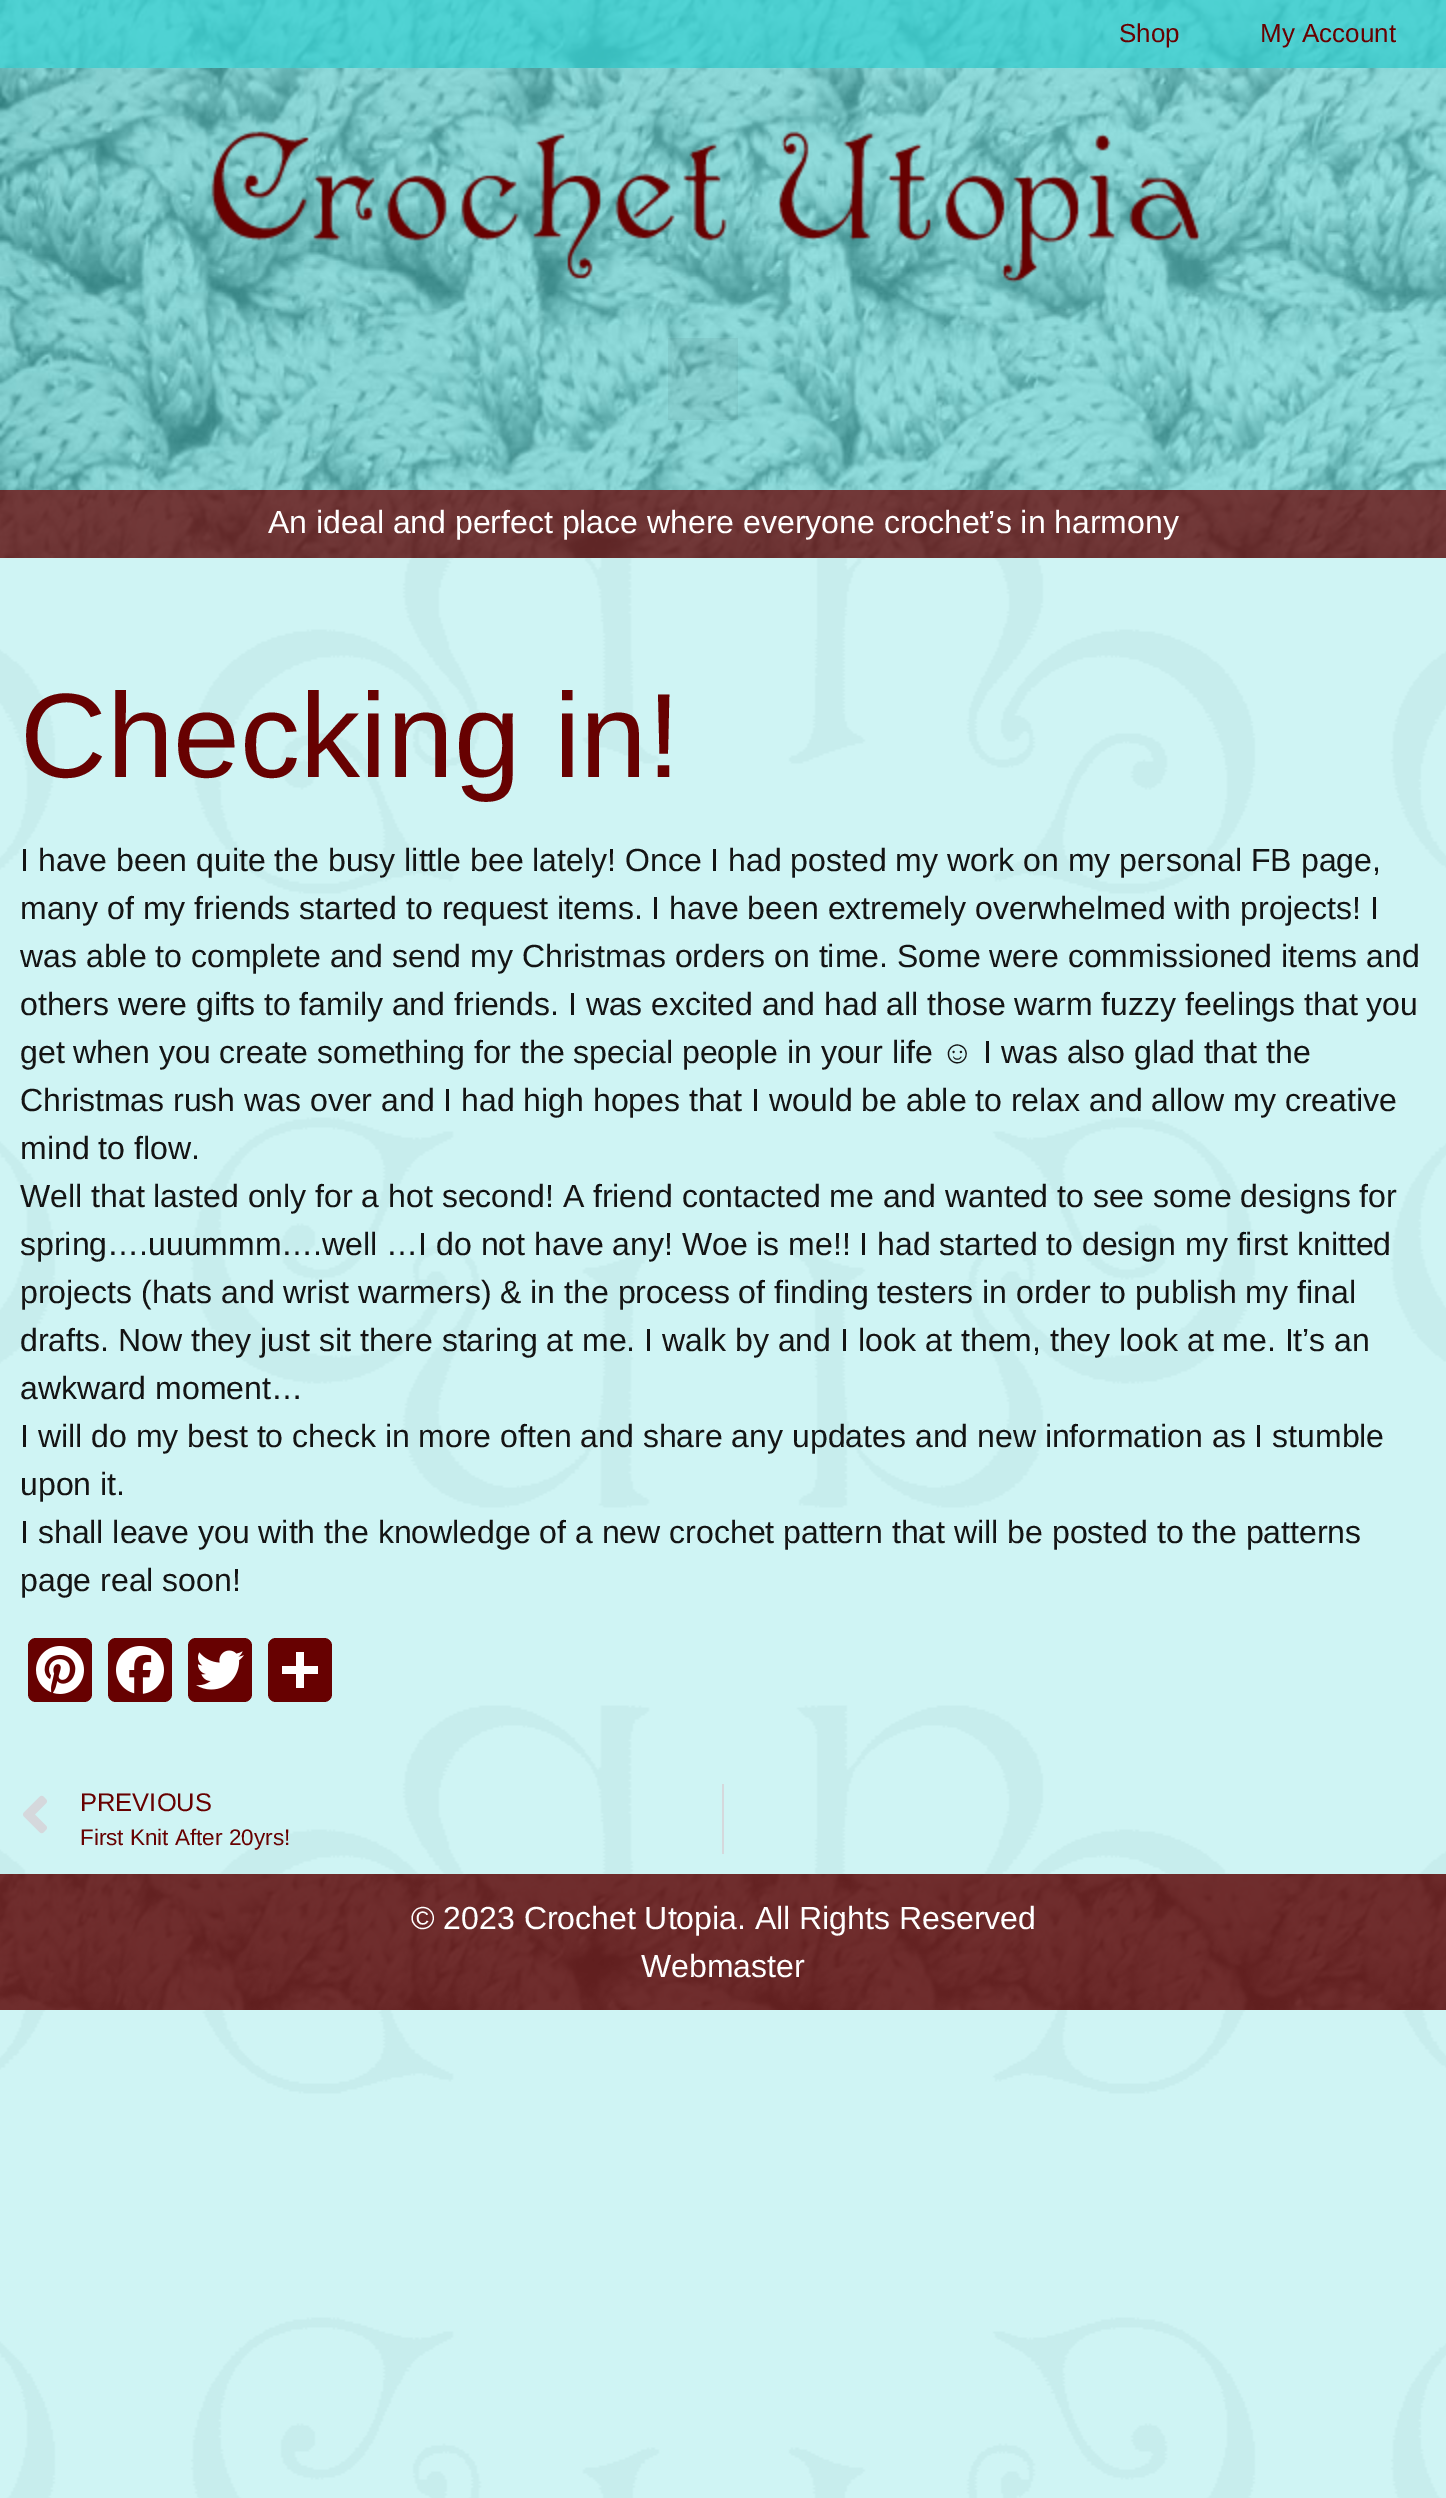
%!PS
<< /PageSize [1446 2498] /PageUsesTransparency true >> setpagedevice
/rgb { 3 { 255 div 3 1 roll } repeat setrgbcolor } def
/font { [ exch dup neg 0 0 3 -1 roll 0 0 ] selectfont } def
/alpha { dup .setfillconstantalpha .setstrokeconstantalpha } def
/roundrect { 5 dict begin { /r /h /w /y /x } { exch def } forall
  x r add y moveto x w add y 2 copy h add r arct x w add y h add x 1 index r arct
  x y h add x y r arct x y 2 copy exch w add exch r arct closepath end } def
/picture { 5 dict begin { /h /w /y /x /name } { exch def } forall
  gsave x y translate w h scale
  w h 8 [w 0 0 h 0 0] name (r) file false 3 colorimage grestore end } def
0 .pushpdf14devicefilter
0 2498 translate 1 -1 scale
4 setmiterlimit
207 244 244 rgb
0 0 1446 2498 rectfill
(img/1.rgb) 0 558 1446 1940 picture
(img/2.rgb) 0 0 1446 68 picture
(img/3.rgb) 0 68 1446 422 picture
(img/4.rgb) 211 131 990 152 picture
0.05 alpha
0 0 0 rgb
668 338 70 82 rectfill
1 alpha
(img/5.rgb) 0 490 1446 68 picture
103 1 1 rgb
28 1638 64 64 8 roundrect fill
(img/6.rgb) 36 1646 48 48 picture
108 1638 64 64 8 roundrect fill
(img/7.rgb) 116 1646 48 48 picture
188 1638 64 64 8 roundrect fill
(img/8.rgb) 196 1650 48 40 picture
268 1638 64 64 8 roundrect fill
255 255 255 rgb
296 1652 8 36 rectfill
282 1666 36 8 rectfill
(img/9.rgb) 23 1795 24 39 picture
213 216 220 rgb
722 1784 2 70 rectfill
(img/10.rgb) 0 1874 1446 136 picture
/LiberationSans-Regular 26 font
103 1 1 rgb
1119 42 moveto (Shop) show
1260 42 moveto (My Account) show
/LiberationSans-Regular 32 font
255 255 255 rgb
268 533 moveto (An ideal and perfect place where everyone crochet’s in harmony) show
/LiberationSans-Regular 120 font
103 1 1 rgb
20 777 moveto (Checking in!) show
/LiberationSans-Regular 32 font
20 20 20 rgb
[
  [(I have been quite the busy little bee lately! Once I had posted my work on my personal FB page,) 20 871]
  [(many of my friends started to request items. I have been extremely overwhelmed with projects! I) 20 919]
  [(was able to complete and send my Christmas orders on time. Some were commissioned items and) 20 967]
  [(others were gifts to family and friends. I was excited and had all those warm fuzzy feelings that you) 20 1015]
  [(get when you create something for the special people in your life ☺ I was also glad that the) 20 1063]
  [(Christmas rush was over and I had high hopes that I would be able to relax and allow my creative) 20 1111]
  [(mind to flow.) 20 1159]
  [(Well that lasted only for a hot second! A friend contacted me and wanted to see some designs for) 20 1207]
  [(spring….uuummm….well …I do not have any! Woe is me!! I had started to design my first knitted) 20 1255]
  [(projects \(hats and wrist warmers\) & in the process of finding testers in order to publish my final) 20 1303]
  [(drafts. Now they just sit there staring at me. I walk by and I look at them, they look at me. It’s an) 20 1351]
  [(awkward moment…) 20 1399]
  [(I will do my best to check in more often and share any updates and new information as I stumble) 20 1447]
  [(upon it.) 20 1495]
  [(I shall leave you with the knowledge of a new crochet pattern that will be posted to the patterns) 20 1543]
  [(page real soon!) 20 1591]
] { aload pop moveto show } forall
/LiberationSans-Regular 25.5 font
103 1 1 rgb
80 1811 moveto (PREVIOUS) show
/LiberationSans-Regular 22.5 font
80 1845 moveto (First Knit After 20yrs!) show
/LiberationSans-Regular 32 font
255 255 255 rgb
411 1929 moveto (© 2023 Crochet Utopia. All Rights Reserved) show
641 1977 moveto (Webmaster) show
.poppdf14devicefilter showpage
